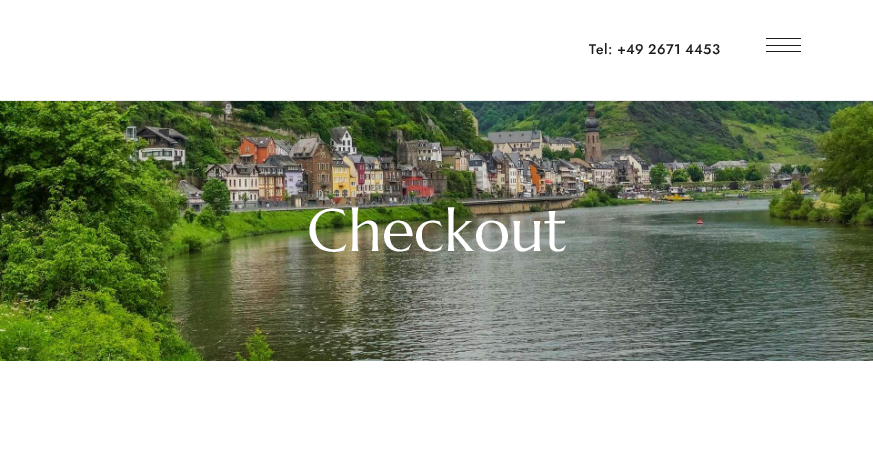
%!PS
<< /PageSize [873 459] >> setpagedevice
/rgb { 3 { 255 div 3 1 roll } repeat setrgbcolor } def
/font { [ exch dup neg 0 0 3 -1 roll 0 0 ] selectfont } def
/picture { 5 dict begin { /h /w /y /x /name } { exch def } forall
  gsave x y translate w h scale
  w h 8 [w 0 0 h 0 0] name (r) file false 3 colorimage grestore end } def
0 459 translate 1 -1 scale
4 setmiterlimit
255 255 255 rgb
0 0 873 459 rectfill
[
  [0 100 873 1 235 235 235]
  [766 38 35 1 26 27 26]
  [766 51 35 1 26 27 26]
  [766 45 35 1 26 27 26]
] { aload pop rgb rectfill } forall
(img/1.rgb) 0 101 873 260 picture
/Jost-Medium 14 font
589 54 moveto 0.25 0 (Tel: +49 2671 4453) ashow
/Marcellus-Regular 60 font
255 255 255 rgb
307 251 moveto (Checkout) show
showpage
